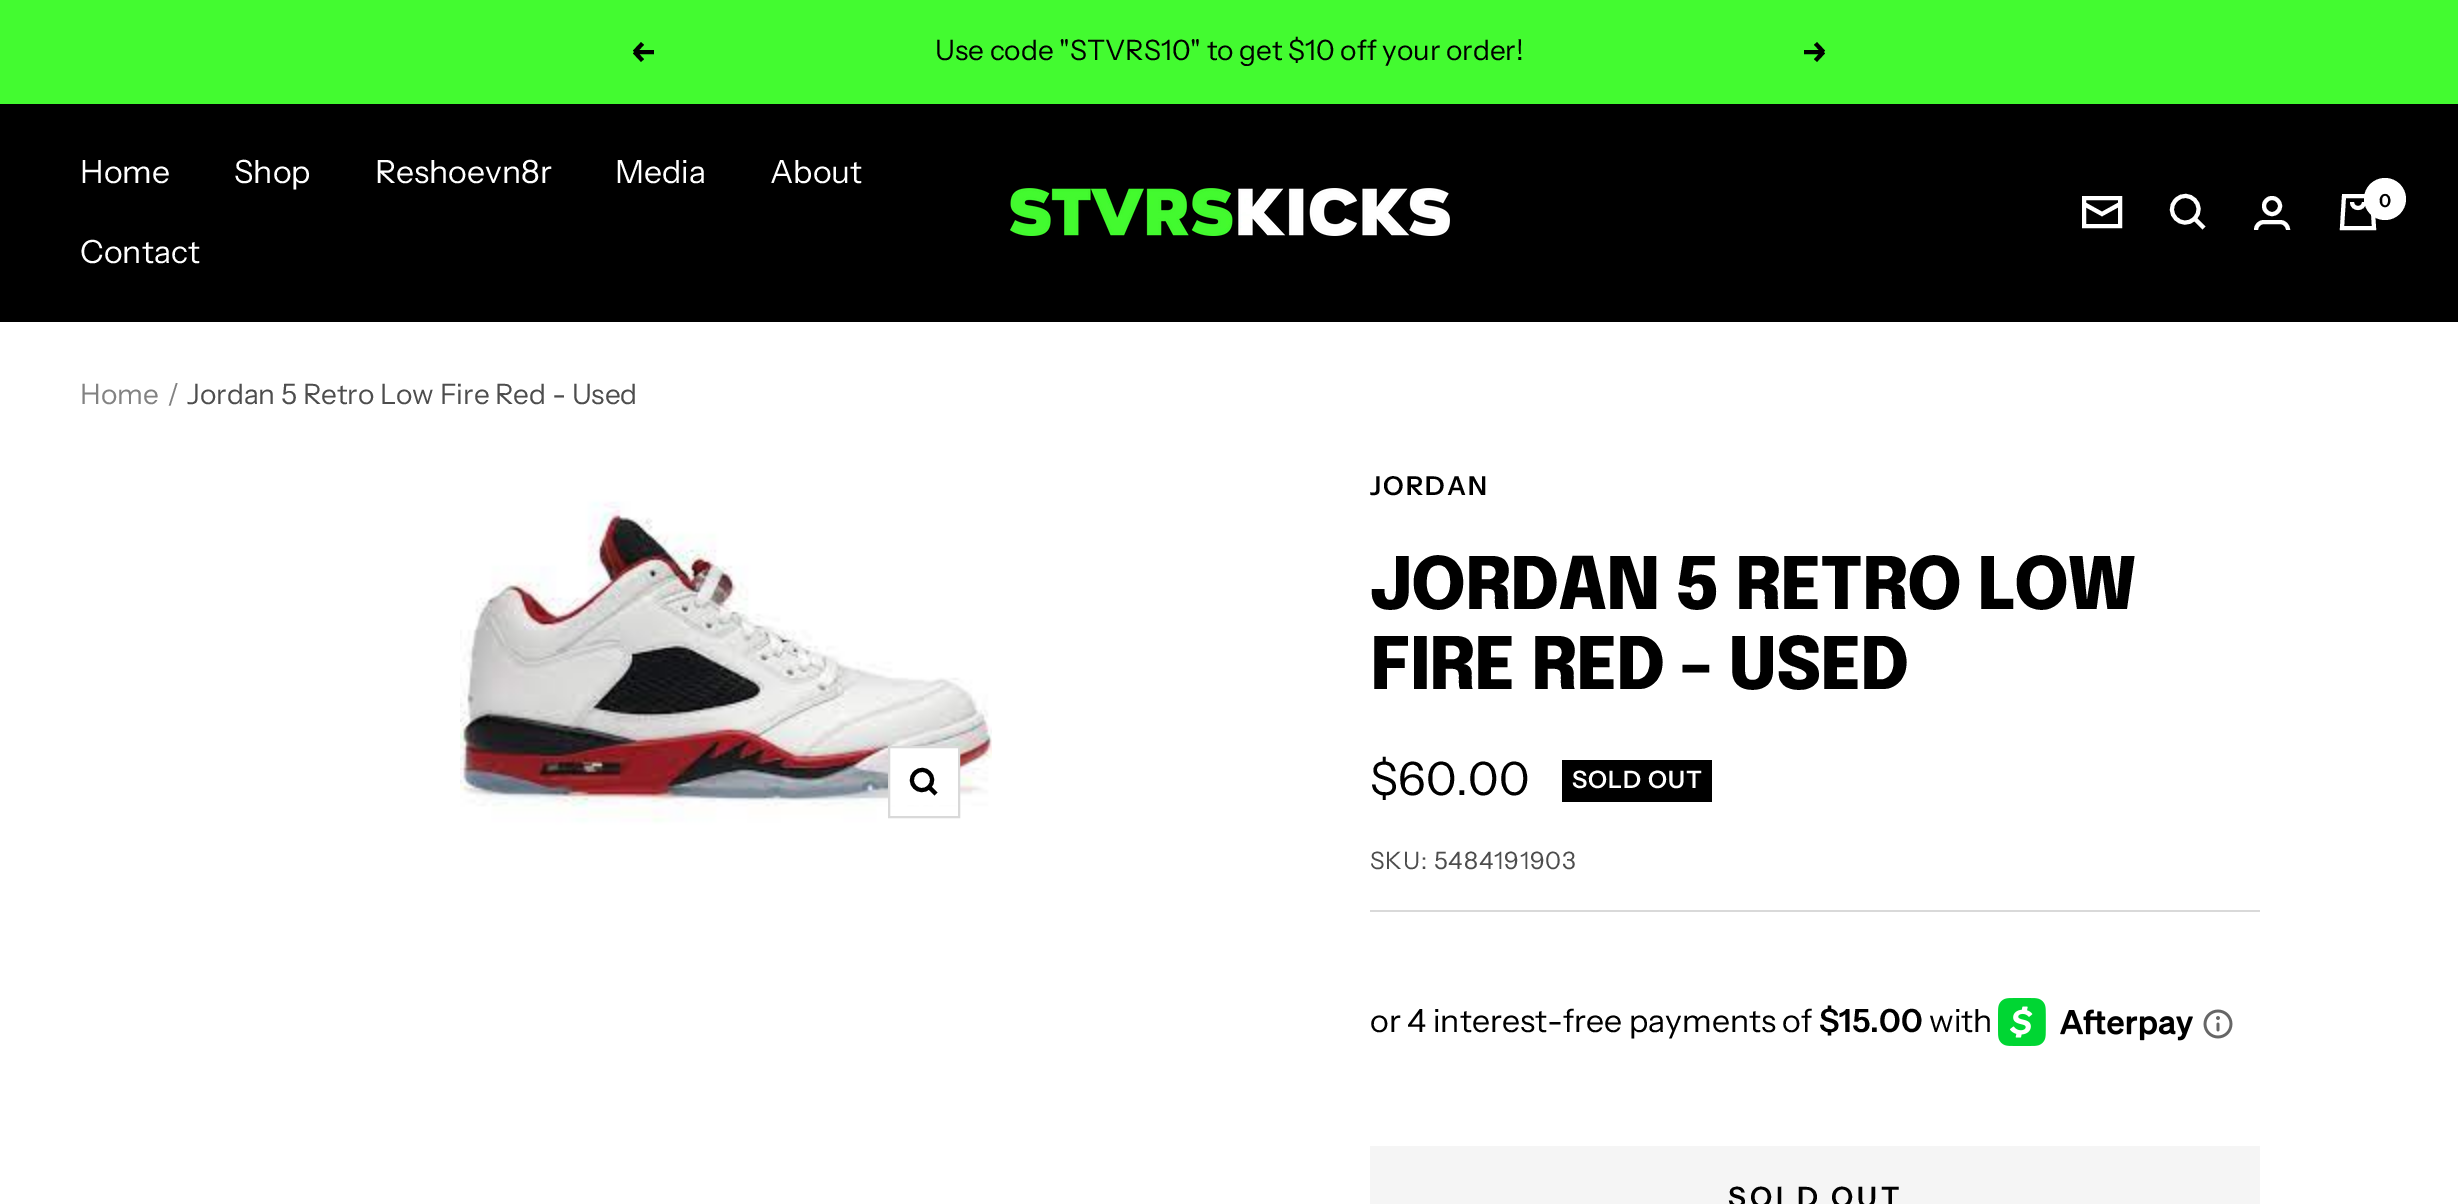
%!PS
<< /PageSize [2458 1204] >> setpagedevice
/rgb { 3 { 255 div 3 1 roll } repeat setrgbcolor } def
/font { [ exch dup neg 0 0 3 -1 roll 0 0 ] selectfont } def
/circle { newpath 0 360 arc closepath } def
/picture { 5 dict begin { /h /w /y /x /name } { exch def } forall
  gsave x y translate w h scale
  w h 8 [w 0 0 h 0 0] name (r) file false 3 colorimage grestore end } def
0 1204 translate 1 -1 scale
4 setmiterlimit
255 255 255 rgb
0 0 2458 1204 rectfill
67 251 48 rgb
0 0 2458 104 rectfill
0 0 0 rgb
4 setlinewidth
654 52 moveto 634.5 52 lineto 634.5 52 moveto 642.5 60.5 lineto 634.5 52 moveto 642.5 43.5 lineto stroke
1804 52 moveto 1823.5 52 lineto 1823.5 52 moveto 1815.5 60.5 lineto 1823.5 52 moveto 1815.5 43.5 lineto stroke
0 104 2458 218 rectfill
(img/1.rgb) 1010 188 440 48 picture
255 255 255 rgb
2120 204 moveto 2102 214 lineto 2084 204 lineto 2084 198 moveto 2120 198 lineto 2120 226 lineto 2084 226 lineto closepath stroke
2194.5 218.5 moveto 2207 206 2188.5 187.5 2176 200 curveto 2163.5 212.5 2182 231 2194.5 218.5 curveto closepath 2194.5 218.5 moveto 2204 228 lineto stroke
2272 206 8 circle stroke
2256 230 moveto 2256 225.5 2259.5 222 2264 222 curveto 2280 222 lineto 2284.5 222 2288 225.5 2288 230 curveto stroke
2344 196 moveto 2372 196 lineto 2374 228 lineto 2342 228 lineto closepath 2352 202 moveto 2352 210 2364 210 2364 202 curveto stroke
2385 199 21 circle fill
(img/2.rgb) 460 470 532 380 picture
890 748 68 57 rectfill
217 217 217 rgb
2 setlinewidth
889 747 70 70 rectstroke
0 0 0 rgb
4 setlinewidth
929 787 moveto 938.5 777.5 924.5 763.5 915 773 curveto 905.5 782.5 919.5 796.5 929 787 curveto closepath 929 787 moveto 936 794 lineto stroke
217 217 217 rgb
1370 910 890 2 rectfill
0 0 0 rgb
1562 760 150 42 rectfill
(img/3.rgb) 1998 998 195 48 picture
(img/4.rgb) 2203 1009 30 30 picture
245 245 245 rgb
1370 1146 890 58 rectfill
/InstrumentSans-Regular 28 font
0 0 0 rgb
935 60 moveto (Use code "STVRS10" to get $10 off your order!) show
/InstrumentSans-Regular 32 font
255 255 255 rgb
[
  [(Home) 80 183]
  [(Shop) 234 183]
  [(Reshoevn8r) 375 183]
  [(Media) 615 183]
  [(About) 770 183]
  [(Contact) 80 263]
] { aload pop moveto show } forall
/InstrumentSans-SemiBold 18 font
0 0 0 rgb
2379 207 moveto (0) show
/InstrumentSans-Regular 28 font
130 130 130 rgb
80 404 moveto (Home) show
167 404 moveto (/) show
77 77 77 rgb
187 404 moveto (Jordan 5 Retro Low Fire Red - Used) show
/InstrumentSans-SemiBold 26 font
0 0 0 rgb
1370 495 moveto 2 0 (JORDAN) ashow
/Epilogue-ExtraBold 72 font
1370 609 moveto -1.6 0 (JORDAN 5 RETRO LOW) ashow
1370 689 moveto -1.6 0 (FIRE RED - USED) ashow
/InstrumentSans-Regular 46 font
1370 795 moveto ($60.00) show
/InstrumentSans-SemiBold 24 font
255 255 255 rgb
1572 788 moveto 1 0 (SOLD OUT) ashow
/InstrumentSans-Regular 24 font
77 77 77 rgb
1370 869 moveto 0.9 0 (SKU: 5484191903) ashow
/InstrumentSans-Regular 32 font
0 0 0 rgb
1370 1032 moveto (or 4 interest-free payments of) show
/InstrumentSans-SemiBold 32 font
1819 1032 moveto ($15.00) show
/InstrumentSans-Regular 32 font
1929 1032 moveto (with) show
/InstrumentSans-SemiBold 28 font
1728 1207 moveto 4 0 (SOLD OUT) ashow
showpage
